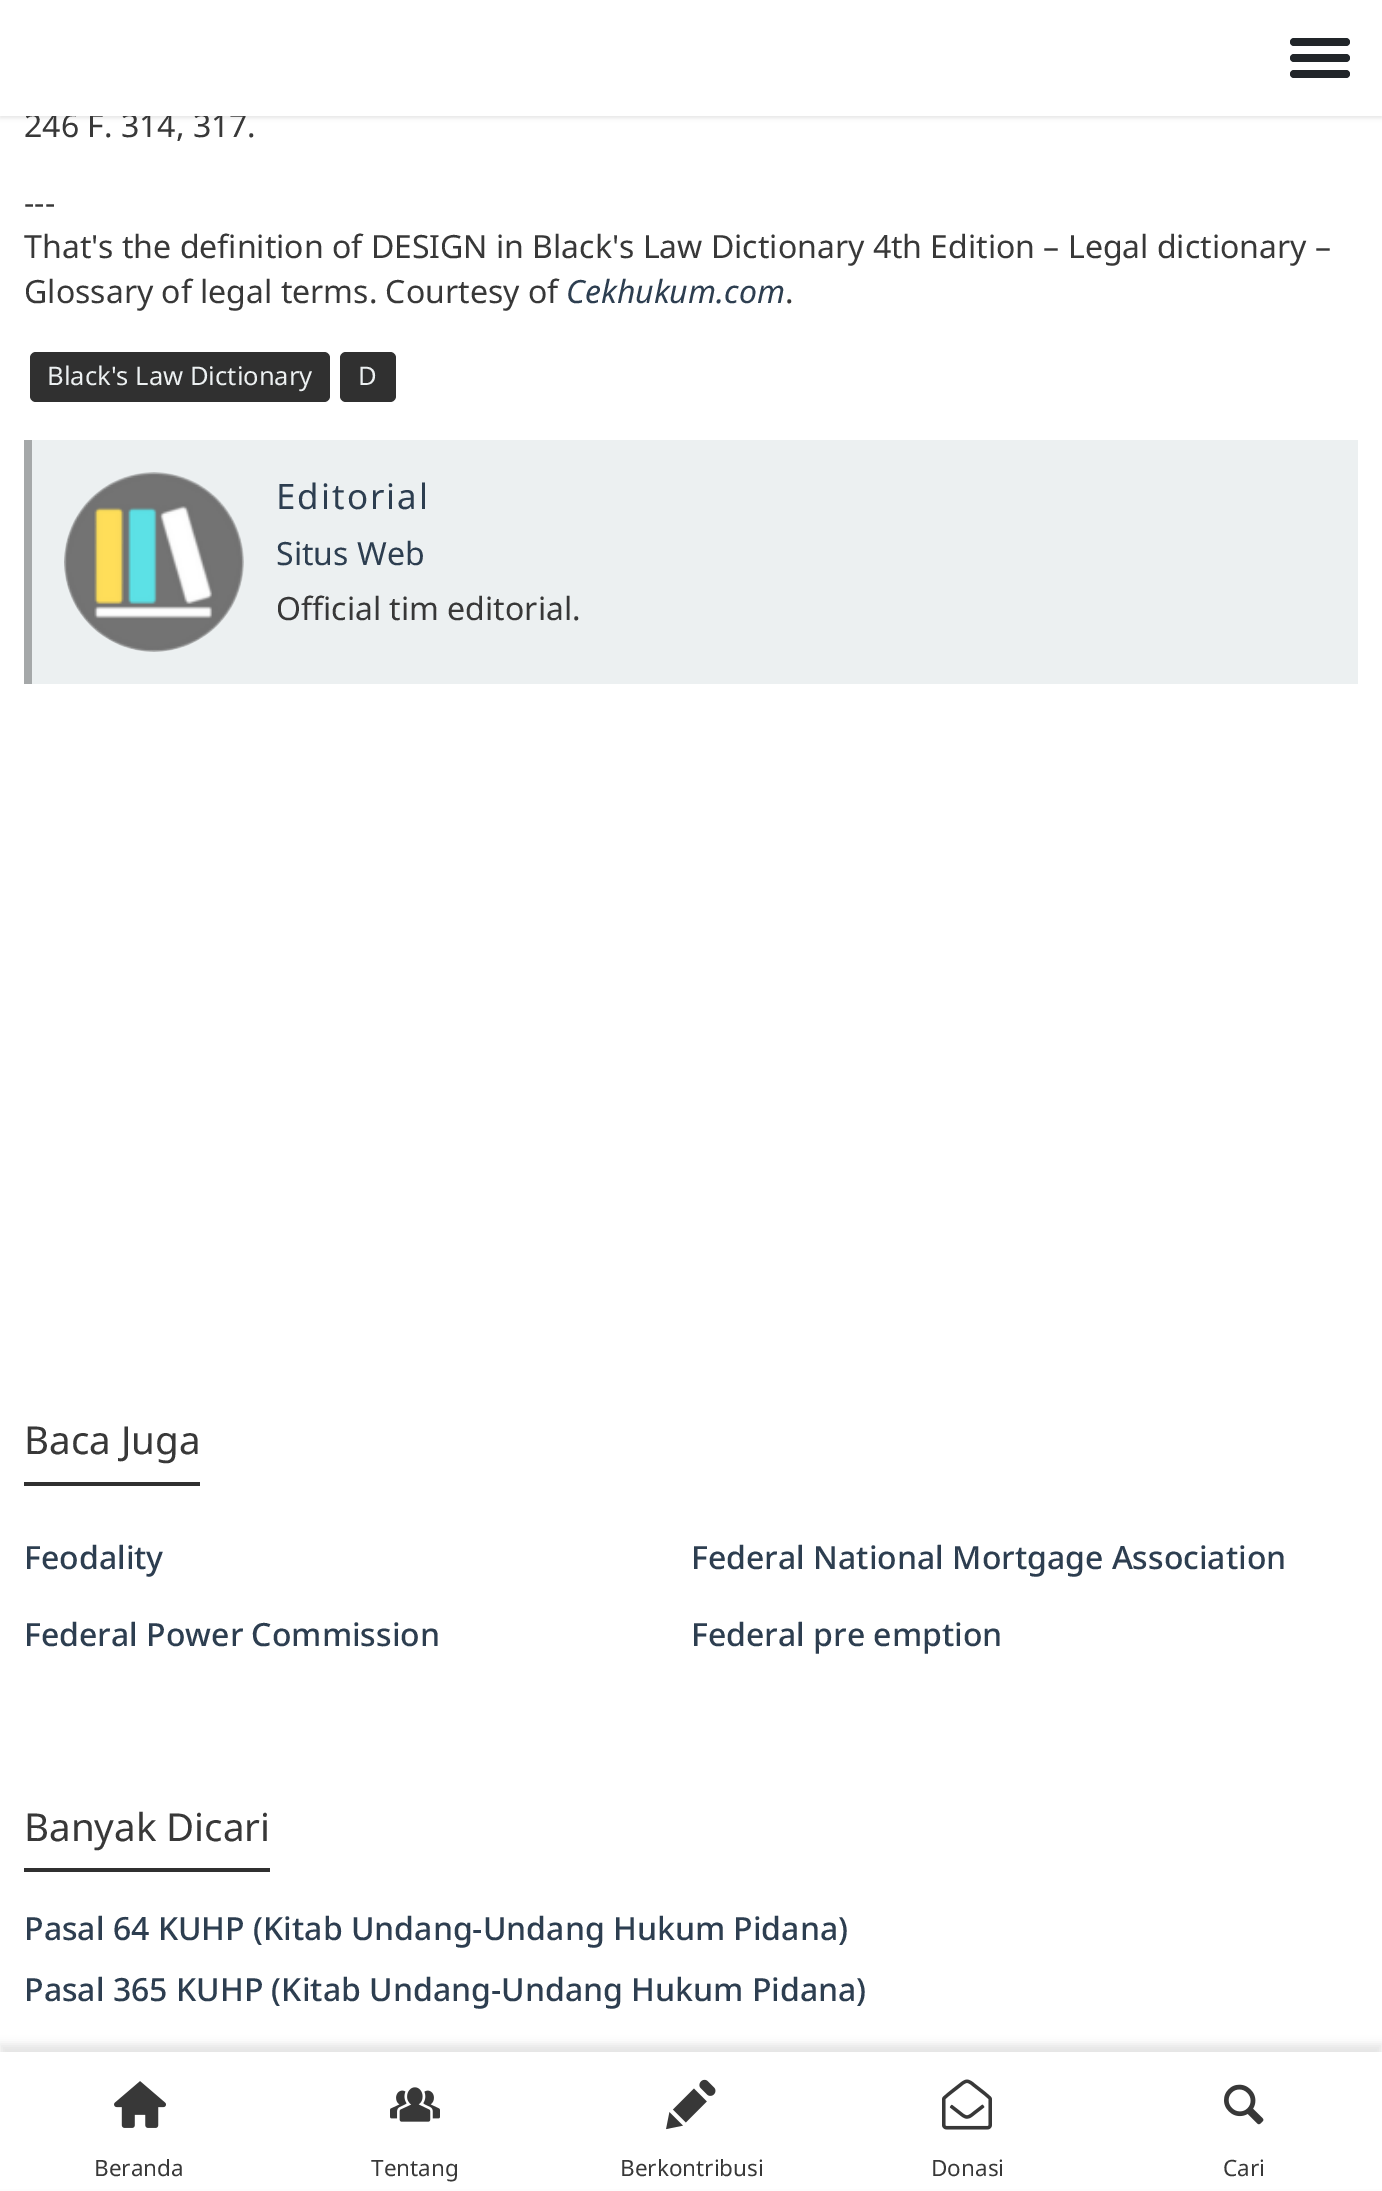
%!PS
<< /PageSize [1382 2191] /PageUsesTransparency true >> setpagedevice
/rgb { 3 { 255 div 3 1 roll } repeat setrgbcolor } def
/font { [ exch dup neg 0 0 3 -1 roll 0 0 ] selectfont } def
/alpha { dup .setfillconstantalpha .setstrokeconstantalpha } def
/roundrect { 5 dict begin { /r /h /w /y /x } { exch def } forall
  x r add y moveto x w add y 2 copy h add r arct x w add y h add x 1 index r arct
  x y h add x y r arct x y 2 copy exch w add exch r arct closepath end } def
/shadow { 12 dict begin { /a /b /q /h /w /y /x } { exch def } forall gsave /was 0 def
  9 -2 -9 { dup b mul 4 div /e exch def 1 sub .425 mul 2.718 exch exp 1 add a .99 .min exch div /now exch def
    1 1 now sub 1 was sub div sub alpha /was now def
    w h .min e 2 mul add 0 gt { x e sub y e sub w e 2 mul add h e 2 mul add
      q e add b .6 mul add w h .min 2 div e add .min 0 .max roundrect fill } if } for grestore end } def
/picture { 5 dict begin { /h /w /y /x /name } { exch def } forall
  gsave x y translate w h scale
  w h 8 [w 0 0 h 0 0] name (r) file false 3 colorimage grestore end } def
0 .pushpdf14devicefilter
0 2191 translate 1 -1 scale
4 setmiterlimit
255 255 255 rgb
0 0 1382 2191 rectfill
0 0 0 rgb
0 2 1382 116 0 2 0.1 shadow
48 48 48 rgb
30 352 300 50 6 roundrect fill
340 352 56 50 6 roundrect fill
236 240 241 rgb
32 440 1326 244 rectfill
165 168 169 rgb
24 440 8 244 rectfill
(img/1.rgb) 64 472 180 180 picture
48 48 48 rgb
24 1482 176 4 rectfill
24 1868 246 4 rectfill
0 0 0 rgb
0 2044 1382 140 0 4 0.1 shadow
255 255 255 rgb
0 2052 1382 137 rectfill
(img/2.rgb) 114 2081 52 47 picture
(img/3.rgb) 390 2087 50 35 picture
(img/4.rgb) 666 2079 50 51 picture
(img/5.rgb) 942 2079 50 51 picture
(img/6.rgb) 1224 2084 40 41 picture
/NotoSans-Regular 32 font
56 56 56 rgb
24 137 moveto (246 F. 314, 317.) show
255 255 255 rgb
0 0 1382 116 rectfill
33 37 41 rgb
1290 70 60 8 4 roundrect fill
1290 54 60 8 4 roundrect fill
1290 38 60 8 4 roundrect fill
56 56 56 rgb
[
  [(---) 24 214]
  [(That's the definition of DESIGN in Black's Law Dictionary 4th Edition – Legal dictionary –) 24 258]
  [(Glossary of legal terms. Courtesy of) 24 303]
] { aload pop moveto show } forall
/NotoSans-Italic 32 font
45 62 80 rgb
566 303 moveto (Cekhukum.com) show
/NotoSans-Regular 32 font
56 56 56 rgb
785 303 moveto (.) show
/NotoSans-Regular 25.6 font
236 240 241 rgb
47 385 moveto (Black's Law Dictionary) show
358 385 moveto (D) show
/NotoSans-Regular 35 font
45 62 80 rgb
276 509 moveto 2 0 (Editorial) ashow
/NotoSans-Regular 32 font
276 565 moveto (Situs Web) show
56 56 56 rgb
276 620 moveto (Official tim editorial.) show
/NotoSans-Regular 38.5 font
24 1454 moveto (Baca Juga) show
/NotoSans-Medium 32 font
45 62 80 rgb
[
  [(Feodality) 24 1569]
  [(Federal National Mortgage Association) 691 1569]
  [(Federal Power Commission) 24 1646]
  [(Federal pre emption) 691 1646]
] { aload pop moveto show } forall
/NotoSans-Regular 38.5 font
56 56 56 rgb
24 1841 moveto (Banyak Dicari) show
/NotoSans-Medium 32 font
45 62 80 rgb
24 1940 moveto (Pasal 64 KUHP \(Kitab Undang-Undang Hukum Pidana\)) show
24 2001 moveto (Pasal 365 KUHP \(Kitab Undang-Undang Hukum Pidana\)) show
/NotoSans-Regular 22.5 font
56 56 56 rgb
[
  [(Beranda) 94 2176]
  [(Tentang) 371 2176]
  [(Berkontribusi) 620 2176]
  [(Donasi) 931 2176]
  [(Cari) 1223 2176]
] { aload pop moveto show } forall
.poppdf14devicefilter showpage
